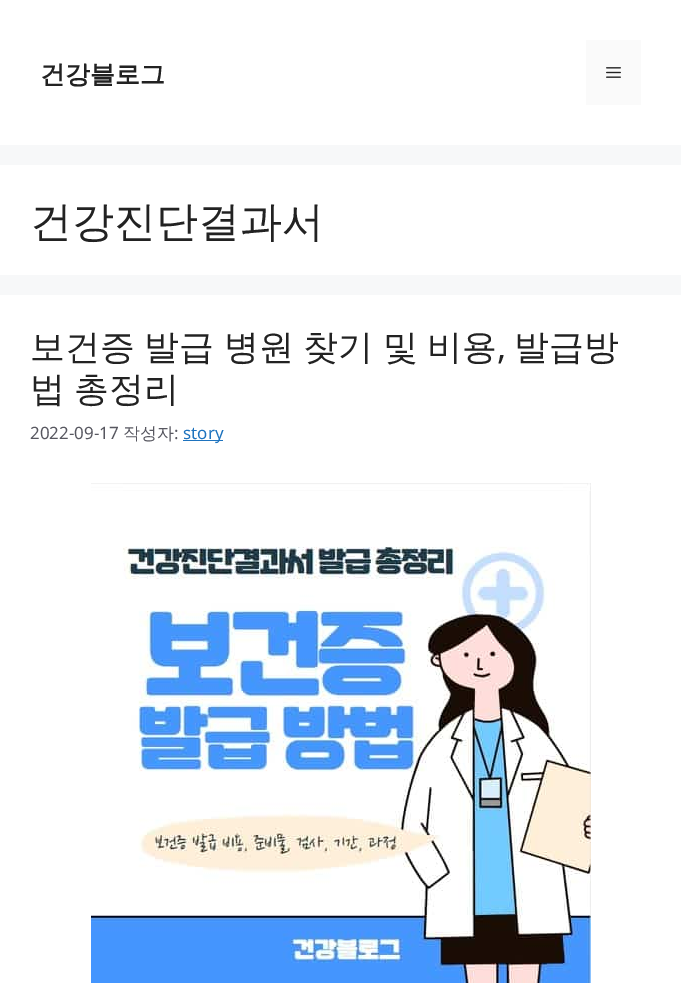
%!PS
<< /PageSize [681 986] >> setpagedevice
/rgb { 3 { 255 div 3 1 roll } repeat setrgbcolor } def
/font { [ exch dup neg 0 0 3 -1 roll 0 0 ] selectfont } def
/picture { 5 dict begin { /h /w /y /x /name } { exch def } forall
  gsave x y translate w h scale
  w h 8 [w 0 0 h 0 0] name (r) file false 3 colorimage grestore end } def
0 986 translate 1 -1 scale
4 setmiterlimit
247 248 249 rgb
0 0 681 986 rectfill
255 255 255 rgb
0 0 681 145 rectfill
250 250 250 rgb
586 40 55 65 rectfill
(img/1.rgb) 606 67 15 11 picture
[
  [0 165 681 110 255 255 255]
  [0 295 681 691 255 255 255]
  [183 440 40 1 30 115 190]
] { aload pop rgb rectfill } forall
(img/2.rgb) 91 483 500 500 picture
/WenQuanYiZenHei-Bold 25 font
34 34 34 rgb
40 83 moveto (건강블로그) show
/WenQuanYiZenHei-Medium 42 font
30 236 moveto (건강진단결과서) show
/WenQuanYiZenHei-Medium 35 font
30 359 moveto -1 0 32 (보건증 발급 병원 찾기 및 비용) widthshow
/NotoSans-Regular 35 font
497 359 moveto (,) show
/WenQuanYiZenHei-Medium 35 font
514 359 moveto (발급방) show
30 401 moveto -1 0 32 (법 총정리) widthshow
/NotoSans-Regular 17 font
87 87 96 rgb
30 439 moveto (2022-09-17) show
/WenQuanYiZenHei-Medium 17 font
123 439 moveto (작성자) show
/NotoSans-Regular 17 font
174 439 moveto (:) show
30 115 190 rgb
183 439 moveto (story) show
showpage
